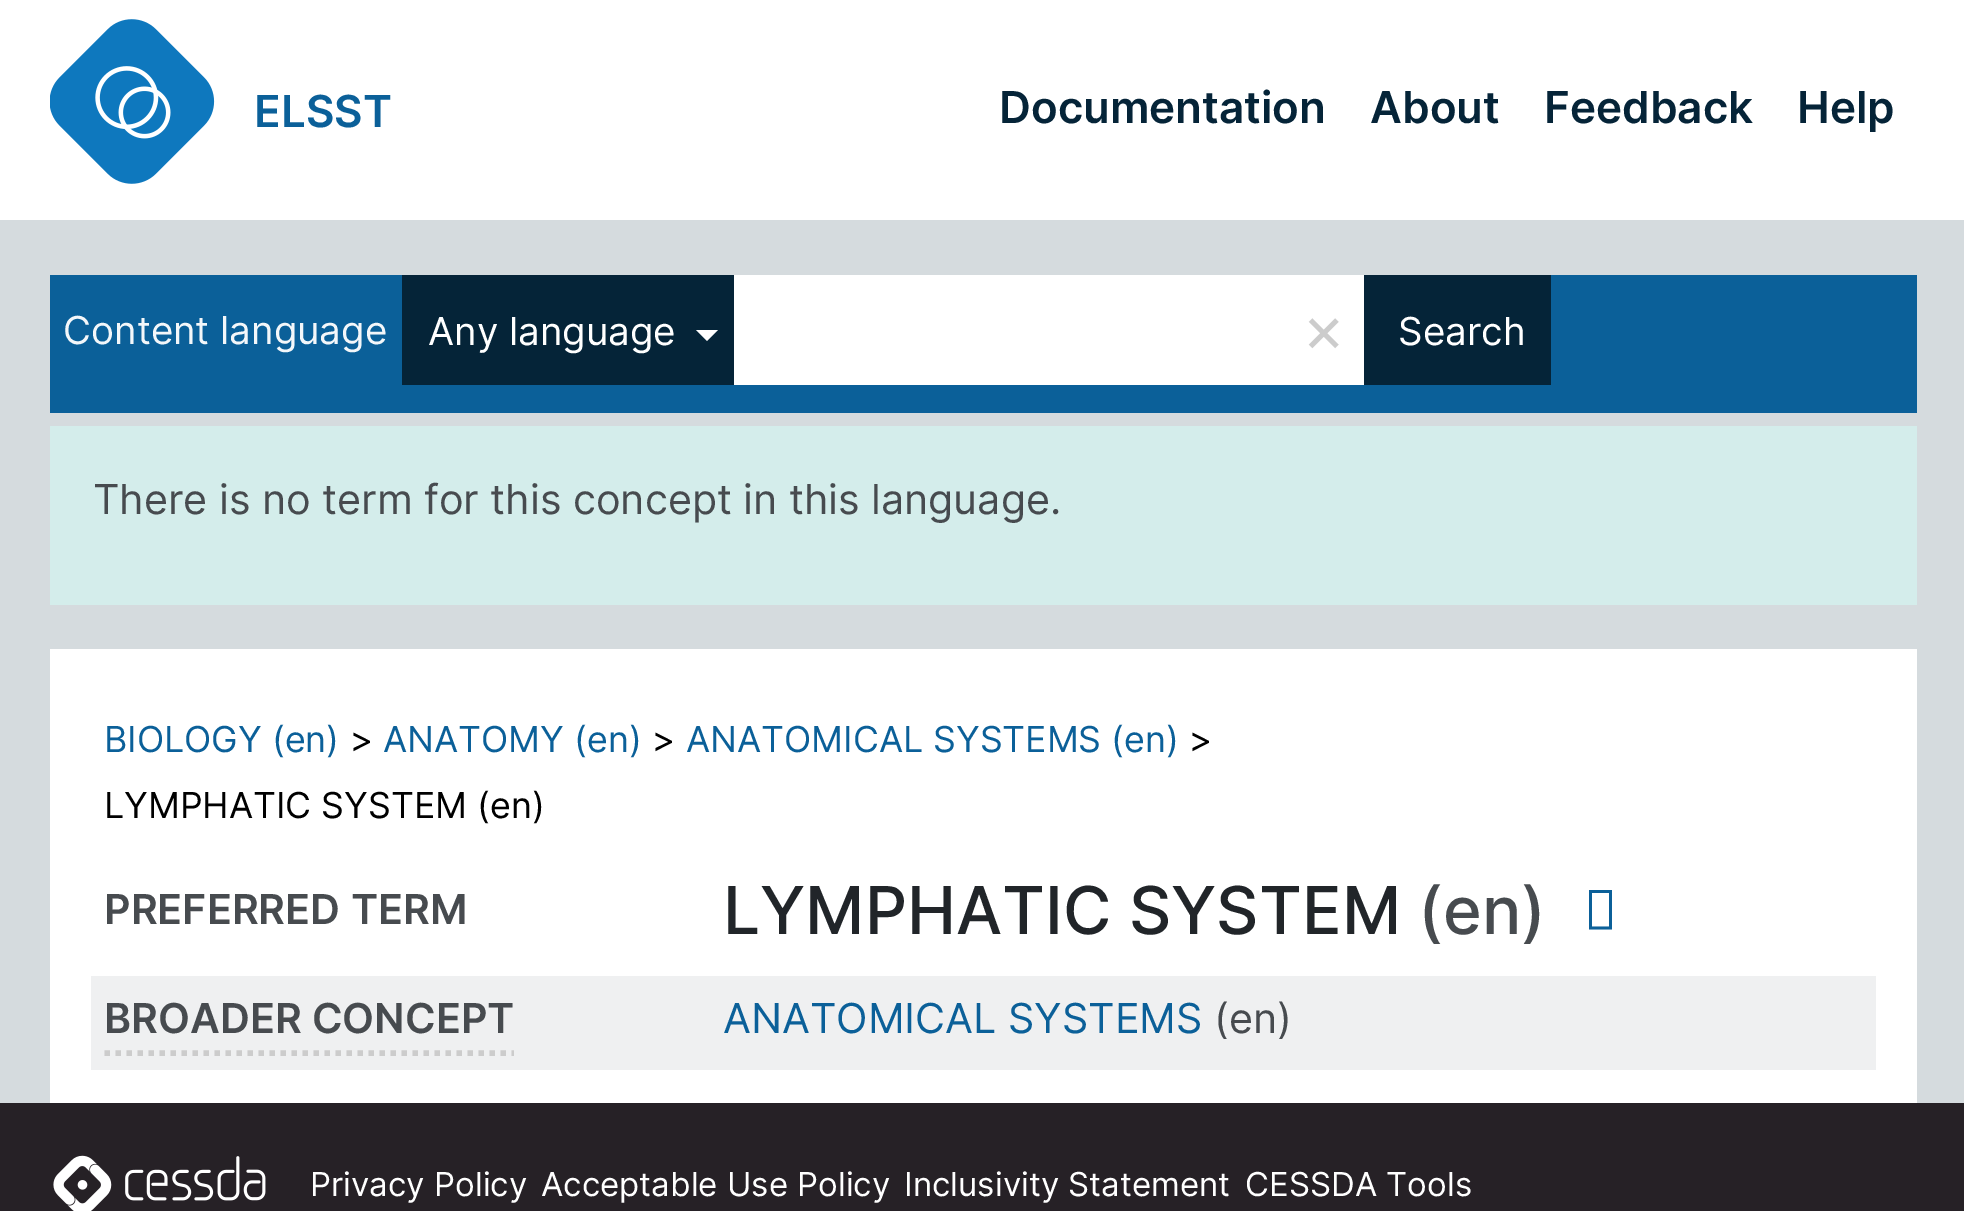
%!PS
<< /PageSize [1964 1211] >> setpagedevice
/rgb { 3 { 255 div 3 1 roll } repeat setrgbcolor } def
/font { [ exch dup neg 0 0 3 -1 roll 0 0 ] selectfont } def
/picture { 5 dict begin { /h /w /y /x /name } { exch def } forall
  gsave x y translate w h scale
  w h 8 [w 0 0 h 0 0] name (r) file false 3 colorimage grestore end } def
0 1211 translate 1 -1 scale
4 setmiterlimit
213 219 222 rgb
0 0 1964 1211 rectfill
255 255 255 rgb
0 0 1964 220 rectfill
(img/1.rgb) 50 19 165 165 picture
11 96 153 rgb
50 275 1867 138 rectfill
5 36 56 rgb
402 275 332 110 rectfill
255 255 255 rgb
696 330 moveto 718 330 lineto 707 341 lineto closepath fill
[
  [734 275 630 110 255 255 255]
  [1364 275 187 110 5 36 56]
  [50 426 1867 179 212 237 235]
  [50 649 1867 454 255 255 255]
] { aload pop rgb rectfill } forall
11 96 153 rgb
1589 929.5 moveto 1589 890 lineto 1612 890 lineto 1612 929.5 lineto closepath 1592 926.5 moveto 1609 926.5 lineto 1609 893 lineto 1592 893 lineto closepath fill
239 240 241 rgb
91 976 1785 94 rectfill
204 204 204 rgb
5.5 setlinewidth
[5.5 5.5] 0 setdash
104.5 1053 moveto 514 1053 lineto stroke
38 33 38 rgb
0 1103 1964 108 rectfill
(img/2.rgb) 53 1155 213 56 picture
/Inter-SemiBold 44 font
11 96 153 rgb
254 127 moveto (ELSST) show
5 36 56 rgb
[
  [(Documentation) 999 123]
  [(About) 1370 123]
  [(Feedback) 1544 123]
  [(Help) 1797 123]
] { aload pop moveto show } forall
/Inter-Regular 38.5 font
243 247 250 rgb
63 344 moveto (Content language) show
255 255 255 rgb
428 345 moveto (Any language) show
/Inter-Regular 66 font
204 204 204 rgb
1302 352 moveto (×) show
/Inter-Regular 38.5 font
255 255 255 rgb
1398 345 moveto (Search) show
/Inter-Regular 41.25 font
71 75 79 rgb
93 514 moveto (There is no term for this concept in this language.) show
/Inter-Regular 35.75 font
11 96 153 rgb
104 752 moveto (BIOLOGY \(en\)) show
0 0 0 rgb
350 752 moveto (>) show
11 96 153 rgb
383 752 moveto (ANATOMY \(en\)) show
0 0 0 rgb
652 752 moveto (>) show
11 96 153 rgb
686 752 moveto (ANATOMICAL SYSTEMS \(en\)) show
0 0 0 rgb
1189 752 moveto (>) show
104 818 moveto (LYMPHATIC SYSTEM \(en\)) show
/Inter-SemiBold 41.25 font
71 75 79 rgb
104 924 moveto (PREFERRED TERM) show
/Inter-Medium 66 font
33 37 41 rgb
723 934 moveto (LYMPHATIC SYSTEM) show
71 75 79 rgb
1418 934 moveto (\(en\)) show
/Inter-SemiBold 41.25 font
104 1033 moveto (BROADER CONCEPT) show
/Inter-Regular 41.25 font
11 96 153 rgb
723 1033 moveto (ANATOMICAL SYSTEMS) show
71 75 79 rgb
1214 1033 moveto (\(en\)) show
/Inter-Regular 33 font
255 255 255 rgb
[
  [(Privacy Policy) 310 1196]
  [(Acceptable Use Policy) 541 1196]
  [(Inclusivity Statement) 904 1196]
  [(CESSDA Tools) 1245 1196]
] { aload pop moveto show } forall
showpage
